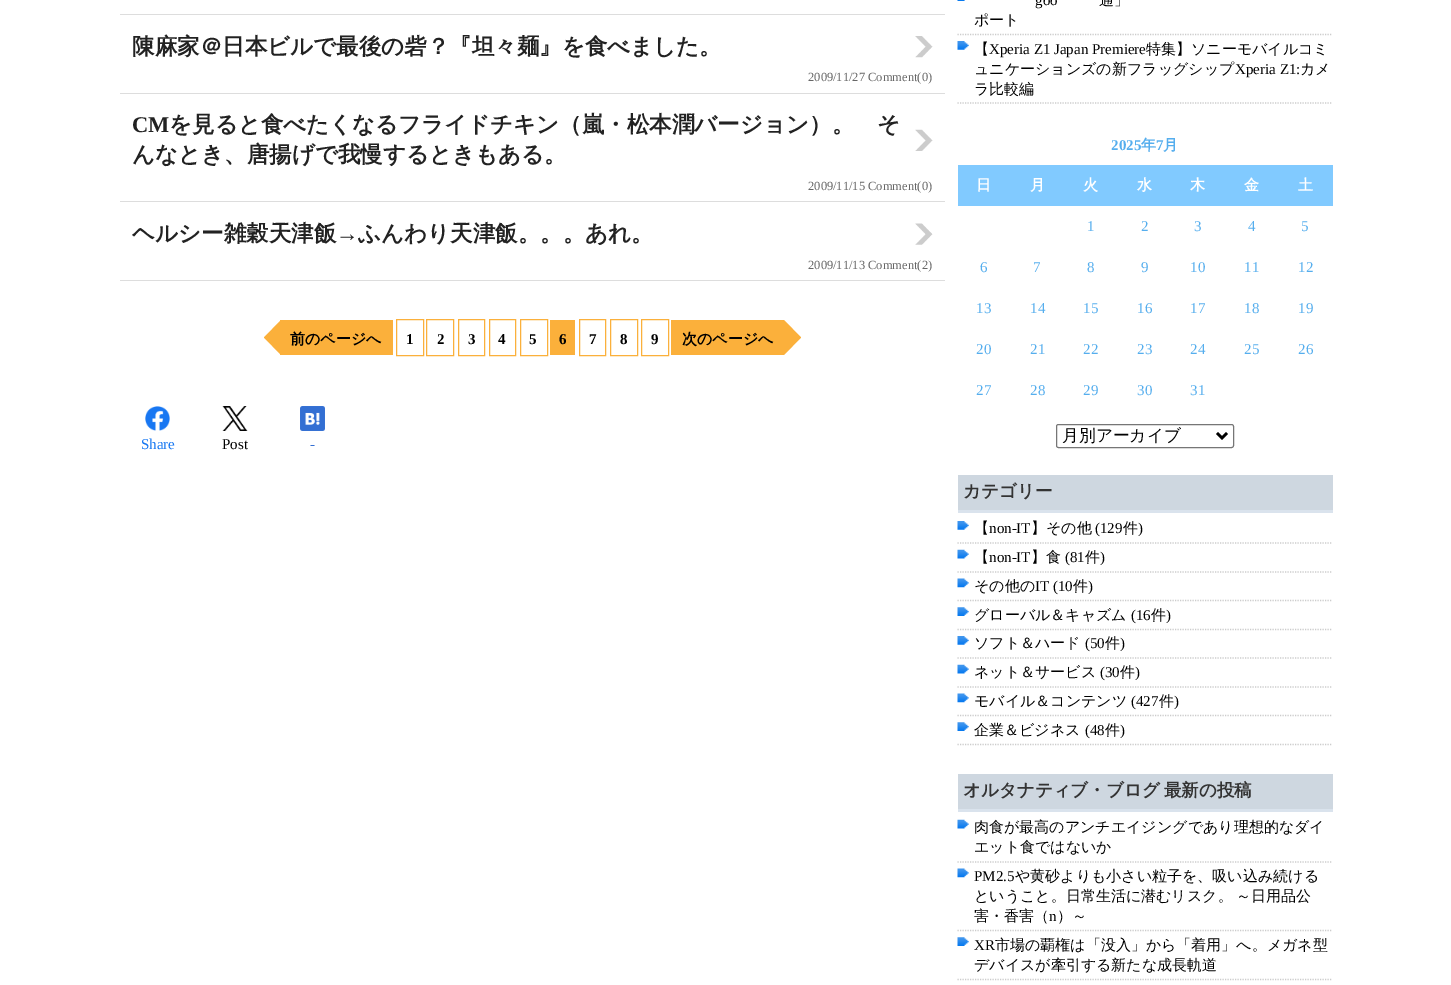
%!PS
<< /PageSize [1451 985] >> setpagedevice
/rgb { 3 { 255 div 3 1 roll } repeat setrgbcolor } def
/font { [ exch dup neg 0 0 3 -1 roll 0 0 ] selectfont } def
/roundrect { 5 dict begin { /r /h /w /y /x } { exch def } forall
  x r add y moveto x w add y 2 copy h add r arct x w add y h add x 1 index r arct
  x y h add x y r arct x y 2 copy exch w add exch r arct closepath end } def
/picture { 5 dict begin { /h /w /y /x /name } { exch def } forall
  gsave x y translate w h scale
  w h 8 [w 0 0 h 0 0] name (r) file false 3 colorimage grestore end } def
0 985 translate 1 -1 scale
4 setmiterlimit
255 255 255 rgb
0 0 1451 985 rectfill
221 221 221 rgb
120 14 825 1 rectfill
120 93 825 1 rectfill
(img/1.rgb) 915 36 18 22 picture
120 201 825 1 rectfill
(img/2.rgb) 915 129 18 22 picture
120 280 825 1 rectfill
(img/3.rgb) 915 223 18 22 picture
251 176 59 rgb
280 320 113 35 rectfill
281 320 moveto 281 355 lineto 264 337.5 lineto closepath fill
396.5 319.5 27 36 rectstroke
426.5 319.5 27 36 rectstroke
458.5 319.5 26 36 rectstroke
489.5 319.5 26 36 rectstroke
520.5 319.5 27 36 rectstroke
550 320 25 35 rectfill
579.5 319.5 26 36 rectstroke
610.5 319.5 27 36 rectstroke
641.5 319.5 27 36 rectstroke
671 320 113 35 rectfill
784 355 moveto 784 320 lineto 801 337.5 lineto closepath fill
(img/4.rgb) 145 406 25 25 picture
(img/5.rgb) 222 406 26 25 picture
(img/6.rgb) 300 406 25 25 picture
(img/7.rgb) 957 0 8 1 picture
204 204 204 rgb
1.2 setlinewidth
[1.25 1.25] 0 setdash
957.5 34.5 moveto 1332.5 34.5 lineto stroke
(img/8.rgb) 957 41 12 9 picture
957.5 103 moveto 1332.5 103 lineto stroke
129 202 255 rgb
958 165 375 41 rectfill
118 118 118 rgb
1 setlinewidth
[] 0 setdash
1056.5 424.5 177 23 2 roundrect stroke
0 0 0 rgb
2.5 setlinewidth
1217 433 moveto 1222 438 lineto 1227 433 lineto stroke
206 215 224 rgb
958 475 375 35 rectfill
218 227 237 rgb
958 510 375 3 rectfill
(img/8.rgb) 957 521 12 9 picture
204 204 204 rgb
1.2 setlinewidth
[1.25 1.25] 0 setdash
957.5 543 moveto 1332.5 543 lineto stroke
(img/9.rgb) 957 549 12 10 picture
957.5 572 moveto 1332.5 572 lineto stroke
(img/10.rgb) 957 578 12 10 picture
957.5 600.5 moveto 1332.5 600.5 lineto stroke
(img/11.rgb) 957 607 12 9 picture
957.5 629.5 moveto 1332.5 629.5 lineto stroke
(img/8.rgb) 957 636 12 9 picture
957.5 658 moveto 1332.5 658 lineto stroke
(img/9.rgb) 957 664 12 10 picture
957.5 687 moveto 1332.5 687 lineto stroke
(img/10.rgb) 957 693 12 10 picture
957.5 715.5 moveto 1332.5 715.5 lineto stroke
(img/11.rgb) 957 722 12 9 picture
957.5 744.5 moveto 1332.5 744.5 lineto stroke
206 215 224 rgb
958 774 375 35 rectfill
218 227 237 rgb
958 809 375 3 rectfill
(img/9.rgb) 957 819 12 10 picture
204 204 204 rgb
957.5 862 moveto 1332.5 862 lineto stroke
(img/10.rgb) 957 868 12 10 picture
957.5 930.5 moveto 1332.5 930.5 lineto stroke
(img/11.rgb) 957 937 12 9 picture
957.5 979.5 moveto 1332.5 979.5 lineto stroke
/WenQuanYiZenHei-Bold 22.5 font
34 34 34 rgb
132 54 moveto (陳麻家＠日本ビルで最後の砦？『坦々麺』を食べました。) show
/LiberationSerif-Regular 12.5 font
102 102 102 rgb
808 81 moveto (2009/11/27 Comment\(0\)) show
/LiberationSerif-Bold 22.5 font
34 34 34 rgb
132 132 moveto (CM) show
/WenQuanYiZenHei-Bold 22.5 font
169 132 moveto (を見ると食べたくなるフライドチキン（嵐・松本潤バージョン）。　そ) show
132 162 moveto (んなとき、唐揚げで我慢するときもある。) show
/LiberationSerif-Regular 12.5 font
102 102 102 rgb
808 190 moveto (2009/11/15 Comment\(0\)) show
/WenQuanYiZenHei-Bold 22.5 font
34 34 34 rgb
132 241 moveto (ヘルシー雑穀天津飯) show
/LiberationSerif-Bold 22.5 font
336 241 moveto (→) show
/WenQuanYiZenHei-Bold 22.5 font
358 241 moveto (ふんわり天津飯。。。あれ。) show
/LiberationSerif-Regular 12.5 font
102 102 102 rgb
808 269 moveto (2009/11/13 Comment\(2\)) show
/WenQuanYiZenHei-Bold 15 font
0 0 0 rgb
290 344 moveto (前のページへ) show
/LiberationSerif-Bold 15 font
[
  [(1) 406 344]
  [(2) 437 344]
  [(3) 468 344]
  [(4) 498 344]
  [(5) 529 344]
  [(6) 559 344]
  [(7) 589 344]
  [(8) 620 344]
  [(9) 651 344]
] { aload pop moveto show } forall
/WenQuanYiZenHei-Bold 15 font
682 344 moveto (次のページへ) show
/LiberationSerif-Regular 15 font
22 119 242 rgb
141 449 moveto (Share) show
0 0 0 rgb
222 449 moveto (Post) show
51 111 211 rgb
310 449 moveto (-) show
0 0 0 rgb
1035 5 moveto (goo) show
/WenQuanYiZenHei-Medium 15 font
[
  [(通」) 1099 5]
  [(ポート) 974 25]
  [(【) 974 54]
] { aload pop moveto show } forall
/LiberationSerif-Regular 15 font
989 54 moveto (Xperia Z1 Japan Premiere) show
/WenQuanYiZenHei-Medium 15 font
1146 54 moveto (特集】ソニーモバイルコミ) show
974 74 moveto (ュニケーションズの新フラッグシップ) show
/LiberationSerif-Regular 15 font
1235 74 moveto (Xperia Z1:) show
/WenQuanYiZenHei-Medium 15 font
1300 74 moveto (カメ) show
974 94 moveto (ラ比較編) show
/LiberationSerif-Bold 15 font
85 174 238 rgb
1111 150 moveto (2025) show
/WenQuanYiZenHei-Bold 15 font
1141 150 moveto (年) show
/LiberationSerif-Bold 15 font
1156 150 moveto (7) show
/WenQuanYiZenHei-Bold 15 font
1163 150 moveto (月) show
255 255 255 rgb
[
  [(日) 976 190]
  [(月) 1030 190]
  [(火) 1083 190]
  [(水) 1137 190]
  [(木) 1190 190]
  [(金) 1244 190]
  [(土) 1298 190]
] { aload pop moveto show } forall
/LiberationSerif-Regular 15 font
85 174 238 rgb
[
  [(1) 1087 231]
  [(2) 1141 231]
  [(3) 1194 231]
  [(4) 1248 231]
  [(5) 1301 231]
  [(6) 980 272]
  [(7) 1033 272]
  [(8) 1087 272]
  [(9) 1141 272]
  [(10) 1190 272]
  [(11) 1244 272]
  [(12) 1298 272]
  [(13) 976 313]
  [(14) 1030 313]
  [(15) 1083 313]
  [(16) 1137 313]
  [(17) 1190 313]
  [(18) 1244 313]
  [(19) 1298 313]
  [(20) 976 354]
  [(21) 1030 354]
  [(22) 1083 354]
  [(23) 1137 354]
  [(24) 1190 354]
  [(25) 1244 354]
  [(26) 1298 354]
  [(27) 976 395]
  [(28) 1030 395]
  [(29) 1083 395]
  [(30) 1137 395]
  [(31) 1190 395]
] { aload pop moveto show } forall
/WenQuanYiZenHei-Medium 16.75 font
0 0 0 rgb
1062 441 moveto (月別アーカイブ) show
/WenQuanYiZenHei-Bold 17.5 font
51 51 51 rgb
963 497 moveto (カテゴリー) show
/WenQuanYiZenHei-Medium 15 font
0 0 0 rgb
974 533 moveto (【) show
/LiberationSerif-Regular 15 font
989 533 moveto (non-IT) show
/WenQuanYiZenHei-Medium 15 font
1031 533 moveto (】その他) show
/LiberationSerif-Regular 15 font
1095 533 moveto (\(129) show
/WenQuanYiZenHei-Medium 15 font
1123 533 moveto (件) show
/LiberationSerif-Regular 15 font
1138 533 moveto (\)) show
/WenQuanYiZenHei-Medium 15 font
974 562 moveto (【) show
/LiberationSerif-Regular 15 font
989 562 moveto (non-IT) show
/WenQuanYiZenHei-Medium 15 font
1031 562 moveto (】食) show
/LiberationSerif-Regular 15 font
1065 562 moveto (\(81) show
/WenQuanYiZenHei-Medium 15 font
1085 562 moveto (件) show
/LiberationSerif-Regular 15 font
1100 562 moveto (\)) show
/WenQuanYiZenHei-Medium 15 font
974 591 moveto (その他の) show
/LiberationSerif-Regular 15 font
1035 591 moveto (IT \(10) show
/WenQuanYiZenHei-Medium 15 font
1073 591 moveto (件) show
/LiberationSerif-Regular 15 font
1088 591 moveto (\)) show
/WenQuanYiZenHei-Medium 15 font
974 620 moveto (グローバル＆キャズム) show
/LiberationSerif-Regular 15 font
1131 620 moveto (\(16) show
/WenQuanYiZenHei-Medium 15 font
1151 620 moveto (件) show
/LiberationSerif-Regular 15 font
1166 620 moveto (\)) show
/WenQuanYiZenHei-Medium 15 font
974 648 moveto (ソフト＆ハード) show
/LiberationSerif-Regular 15 font
1085 648 moveto (\(50) show
/WenQuanYiZenHei-Medium 15 font
1105 648 moveto (件) show
/LiberationSerif-Regular 15 font
1120 648 moveto (\)) show
/WenQuanYiZenHei-Medium 15 font
974 677 moveto (ネット＆サービス) show
/LiberationSerif-Regular 15 font
1100 677 moveto (\(30) show
/WenQuanYiZenHei-Medium 15 font
1120 677 moveto (件) show
/LiberationSerif-Regular 15 font
1135 677 moveto (\)) show
/WenQuanYiZenHei-Medium 15 font
974 706 moveto (モバイル＆コンテンツ) show
/LiberationSerif-Regular 15 font
1131 706 moveto (\(427) show
/WenQuanYiZenHei-Medium 15 font
1159 706 moveto (件) show
/LiberationSerif-Regular 15 font
1174 706 moveto (\)) show
/WenQuanYiZenHei-Medium 15 font
974 735 moveto (企業＆ビジネス) show
/LiberationSerif-Regular 15 font
1085 735 moveto (\(48) show
/WenQuanYiZenHei-Medium 15 font
1105 735 moveto (件) show
/LiberationSerif-Regular 15 font
1120 735 moveto (\)) show
/WenQuanYiZenHei-Bold 17.5 font
51 51 51 rgb
963 796 moveto -1 0 32 (オルタナティブ・ブログ 最新の投稿) widthshow
/WenQuanYiZenHei-Medium 15 font
0 0 0 rgb
974 832 moveto (肉食が最高のアンチエイジングであり理想的なダイ) show
974 852 moveto (エット食ではないか) show
/LiberationSerif-Regular 15 font
974 881 moveto (PM2.5) show
/WenQuanYiZenHei-Medium 15 font
1015 881 moveto (や黄砂よりも小さい粒子を、吸い込み続ける) show
974 901 moveto -1 0 32 (ということ。日常生活に潜むリスク。 ～日用品公) widthshow
974 921 moveto (害・香害（) show
/LiberationSerif-Regular 15 font
1049 921 moveto (n) show
/WenQuanYiZenHei-Medium 15 font
1057 921 moveto (）～) show
/LiberationSerif-Regular 15 font
974 950 moveto (XR) show
/WenQuanYiZenHei-Medium 15 font
995 950 moveto (市場の覇権は「没入」から「着用」へ。メガネ型) show
974 970 moveto (デバイスが牽引する新たな成長軌道) show
showpage
